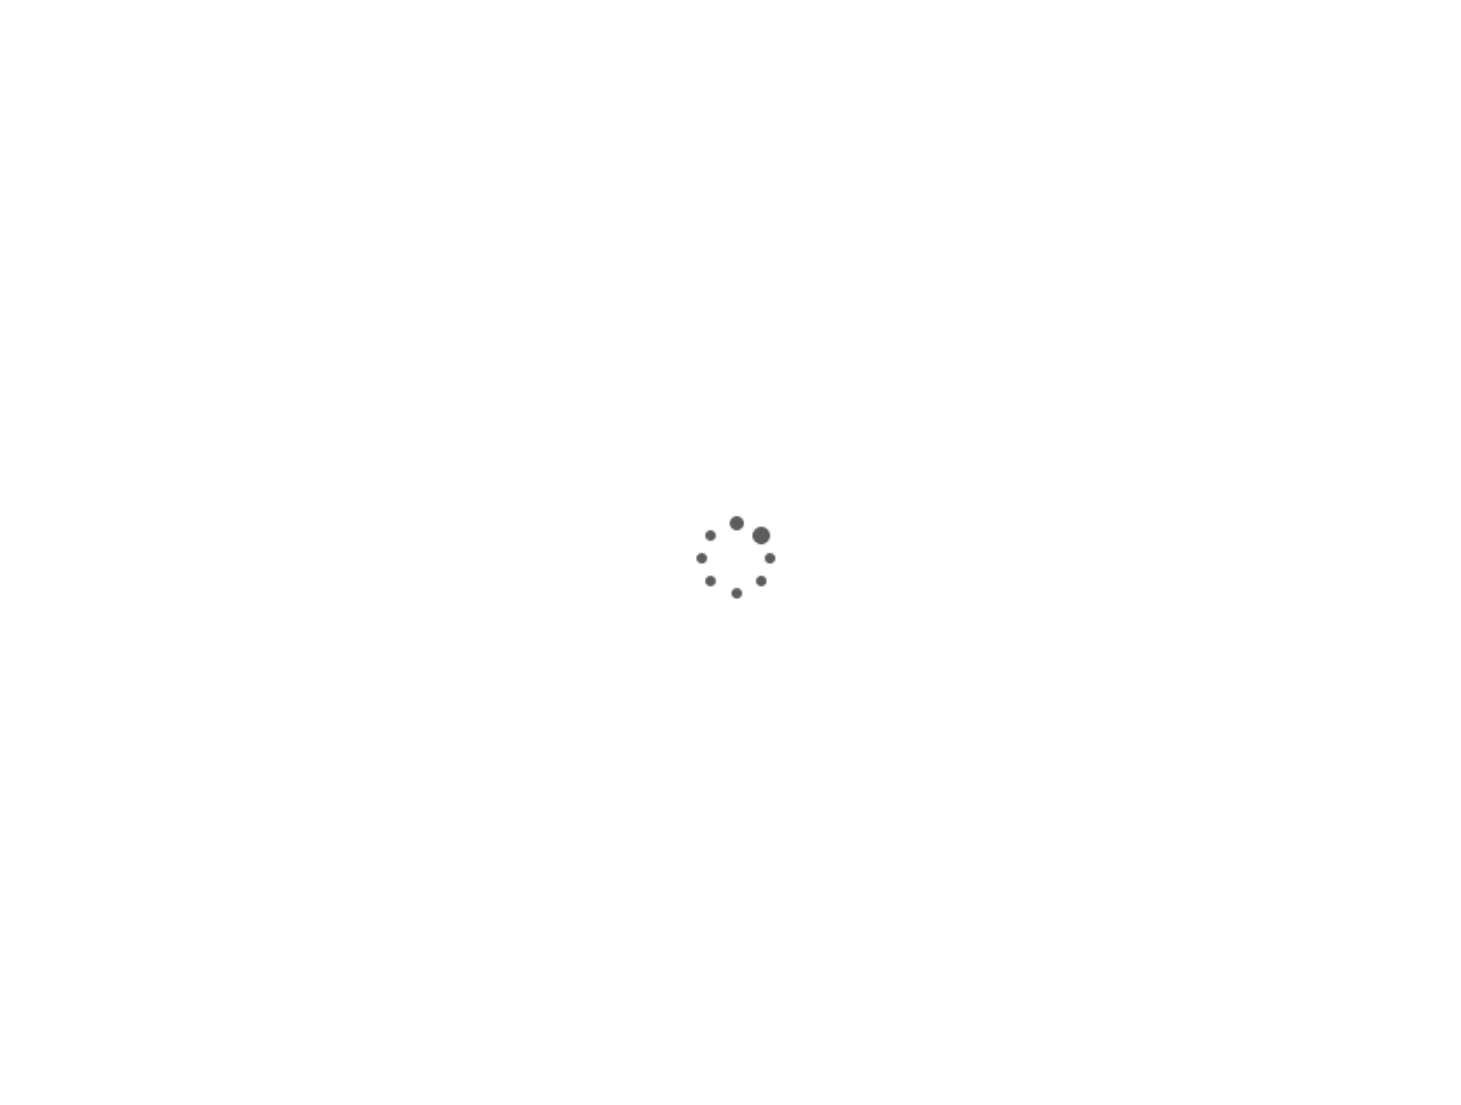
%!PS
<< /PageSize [1461 1105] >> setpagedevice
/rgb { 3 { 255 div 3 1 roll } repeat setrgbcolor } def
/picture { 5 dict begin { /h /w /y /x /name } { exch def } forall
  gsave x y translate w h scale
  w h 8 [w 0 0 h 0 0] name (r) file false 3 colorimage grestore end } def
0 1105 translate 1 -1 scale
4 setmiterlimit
255 255 255 rgb
0 0 1461 1105 rectfill
(img/1.rgb) 696 515 80 84 picture
showpage
